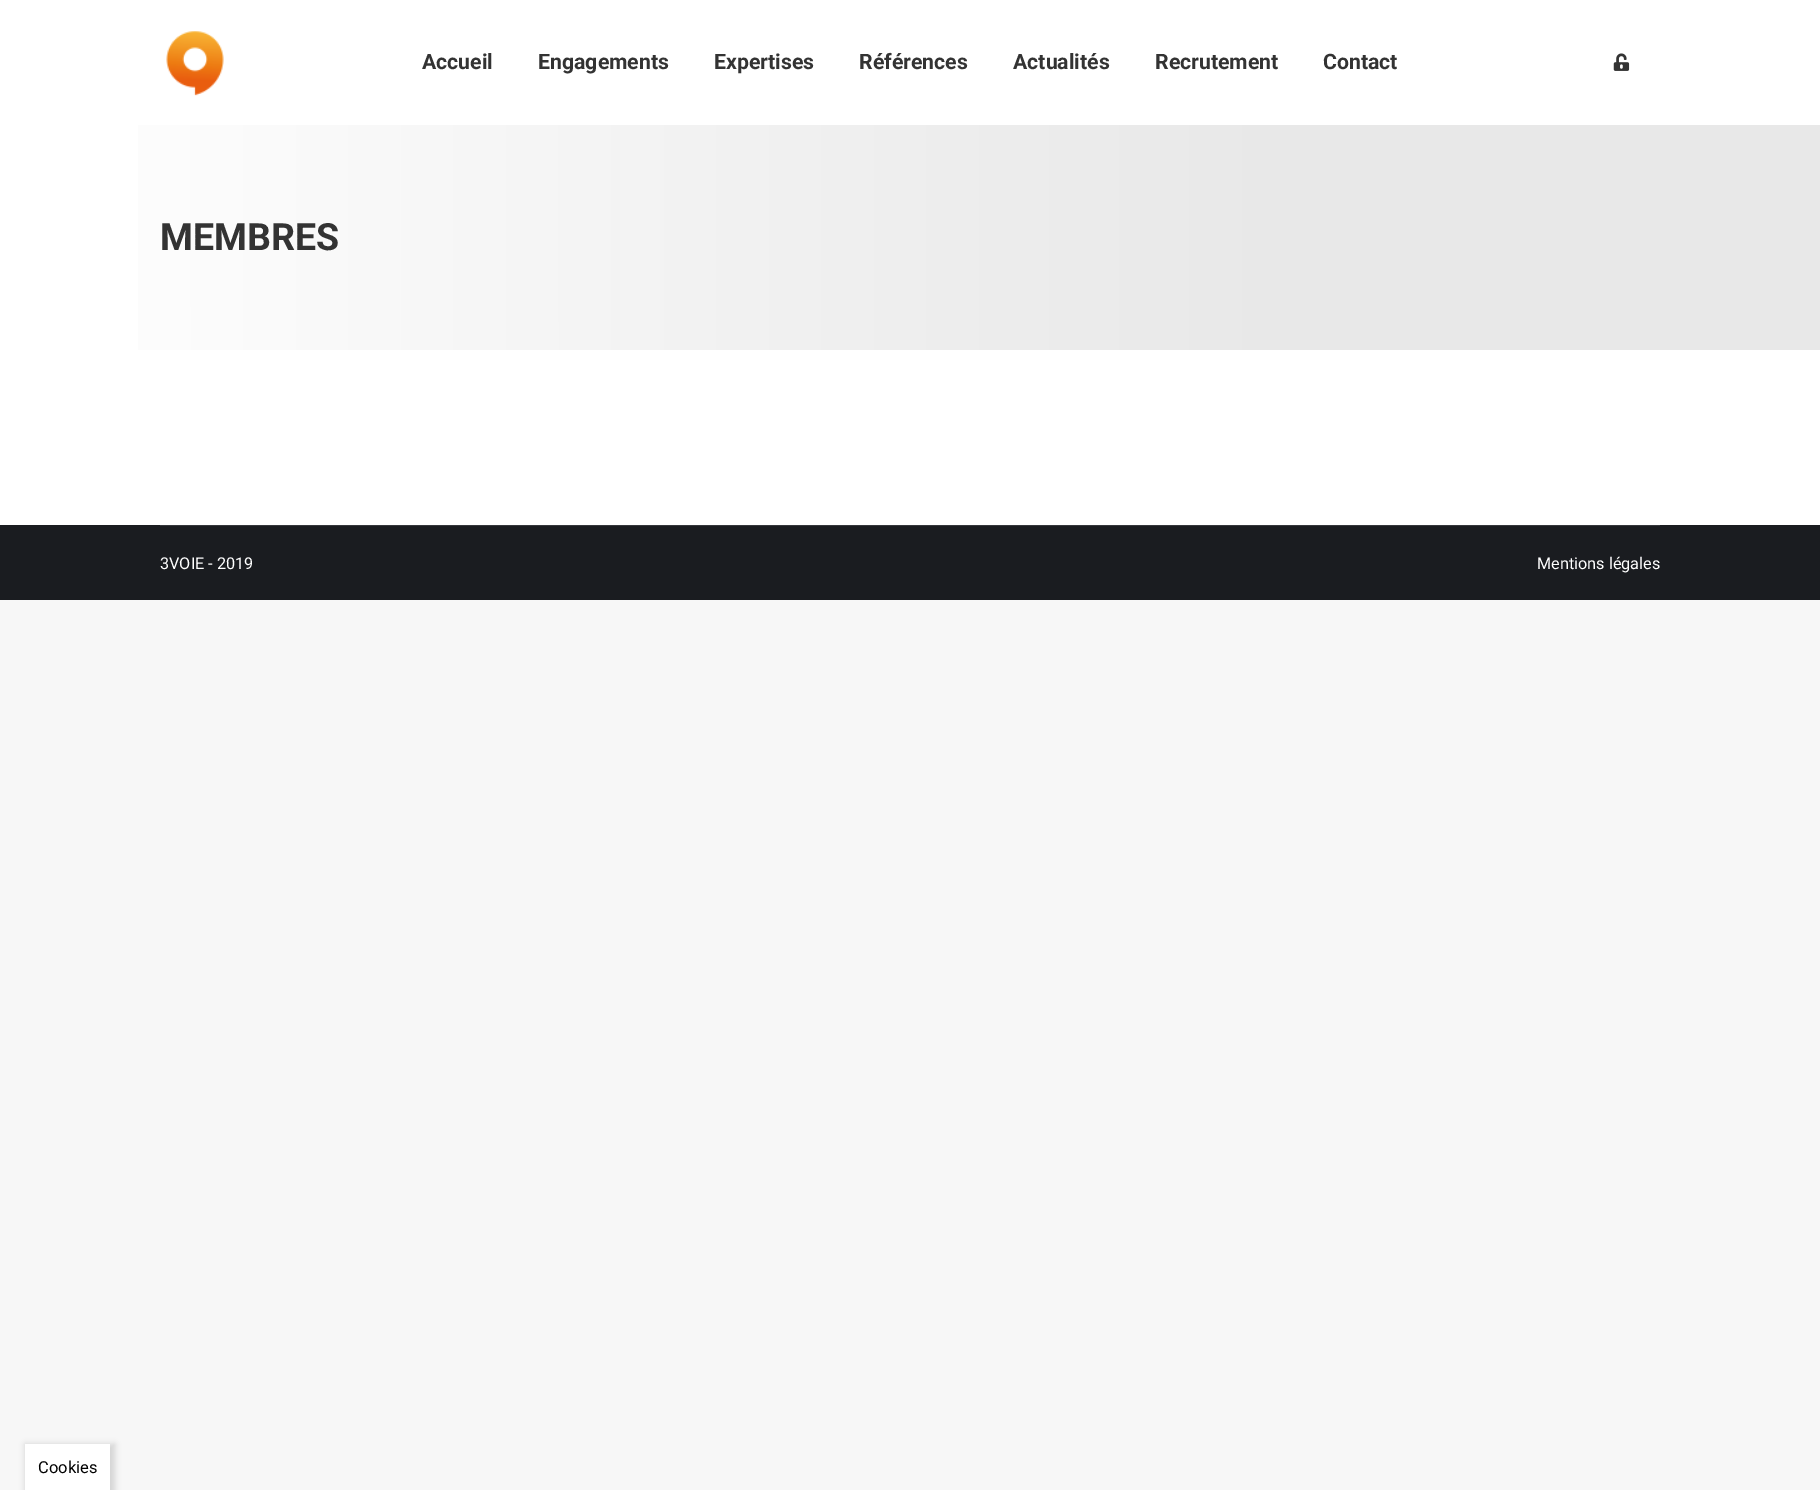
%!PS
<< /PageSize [1820 1490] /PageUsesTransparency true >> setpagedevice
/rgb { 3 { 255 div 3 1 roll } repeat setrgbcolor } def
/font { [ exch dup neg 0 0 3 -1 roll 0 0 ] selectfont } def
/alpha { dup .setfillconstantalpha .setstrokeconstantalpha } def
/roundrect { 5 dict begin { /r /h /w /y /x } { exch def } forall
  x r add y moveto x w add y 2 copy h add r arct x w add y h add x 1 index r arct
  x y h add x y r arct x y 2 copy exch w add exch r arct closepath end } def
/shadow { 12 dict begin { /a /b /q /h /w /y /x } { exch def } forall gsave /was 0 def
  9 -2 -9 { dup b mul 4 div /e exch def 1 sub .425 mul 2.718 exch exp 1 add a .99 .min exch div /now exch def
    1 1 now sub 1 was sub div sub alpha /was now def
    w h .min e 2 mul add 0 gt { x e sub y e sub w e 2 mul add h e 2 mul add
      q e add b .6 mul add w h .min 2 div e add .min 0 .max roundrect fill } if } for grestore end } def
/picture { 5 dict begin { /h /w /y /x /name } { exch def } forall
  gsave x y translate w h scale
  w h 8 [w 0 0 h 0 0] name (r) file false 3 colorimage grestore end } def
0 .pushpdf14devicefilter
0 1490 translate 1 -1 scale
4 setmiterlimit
247 247 247 rgb
0 0 1820 1490 rectfill
255 255 255 rgb
0 0 1820 525 rectfill
(img/1.rgb) 166 31 58 65 picture
(img/2.rgb) 1613 53 17 18 picture
gsave 138 125 moveto 1820 125 lineto 1820 350 lineto 138 350 lineto closepath clip newpath
<< /ShadingType 2 /ColorSpace /DeviceRGB /Coords [1820 237 0 238] /Extend [true true] /Function << /FunctionType 3 /Domain [0 1] /Functions [<< /FunctionType 2 /Domain [0 1] /C0 [0.91 0.91 0.91] /C1 [0.91 0.91 0.91] /N 1 >> << /FunctionType 2 /Domain [0 1] /C0 [0.91 0.91 0.91] /C1 [1 1 1] /N 1 >>] /Bounds [0.3] /Encode [0 1 0 1] >> >> shfill grestore
26 28 32 rgb
0 525 1820 75 rectfill
53 55 59 rgb
160 525 1500 1 rectfill
22 22 22 rgb
25 1444 90 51 0 3 0.15 shadow
255 255 255 rgb
25 1444 85 46 rectfill
/Roboto-Bold 21.25 font
51 51 51 rgb
[
  [(Accueil) 422 69]
  [(Engagements) 538 69]
  [(Expertises) 714 69]
  [(Références) 859 69]
  [(Actualités) 1013 69]
  [(Recrutement) 1155 69]
  [(Contact) 1323 69]
] { aload pop moveto show } forall
/Roboto-Bold 37.5 font
160 250 moveto (MEMBRES) show
/Roboto-Regular 16.25 font
255 255 255 rgb
160 569 moveto (3VOIE - 2019) show
1537 569 moveto (Mentions légales) show
/Roboto-Regular 16.5 font
0 0 0 rgb
38 1473 moveto (Cookies) show
.poppdf14devicefilter showpage
